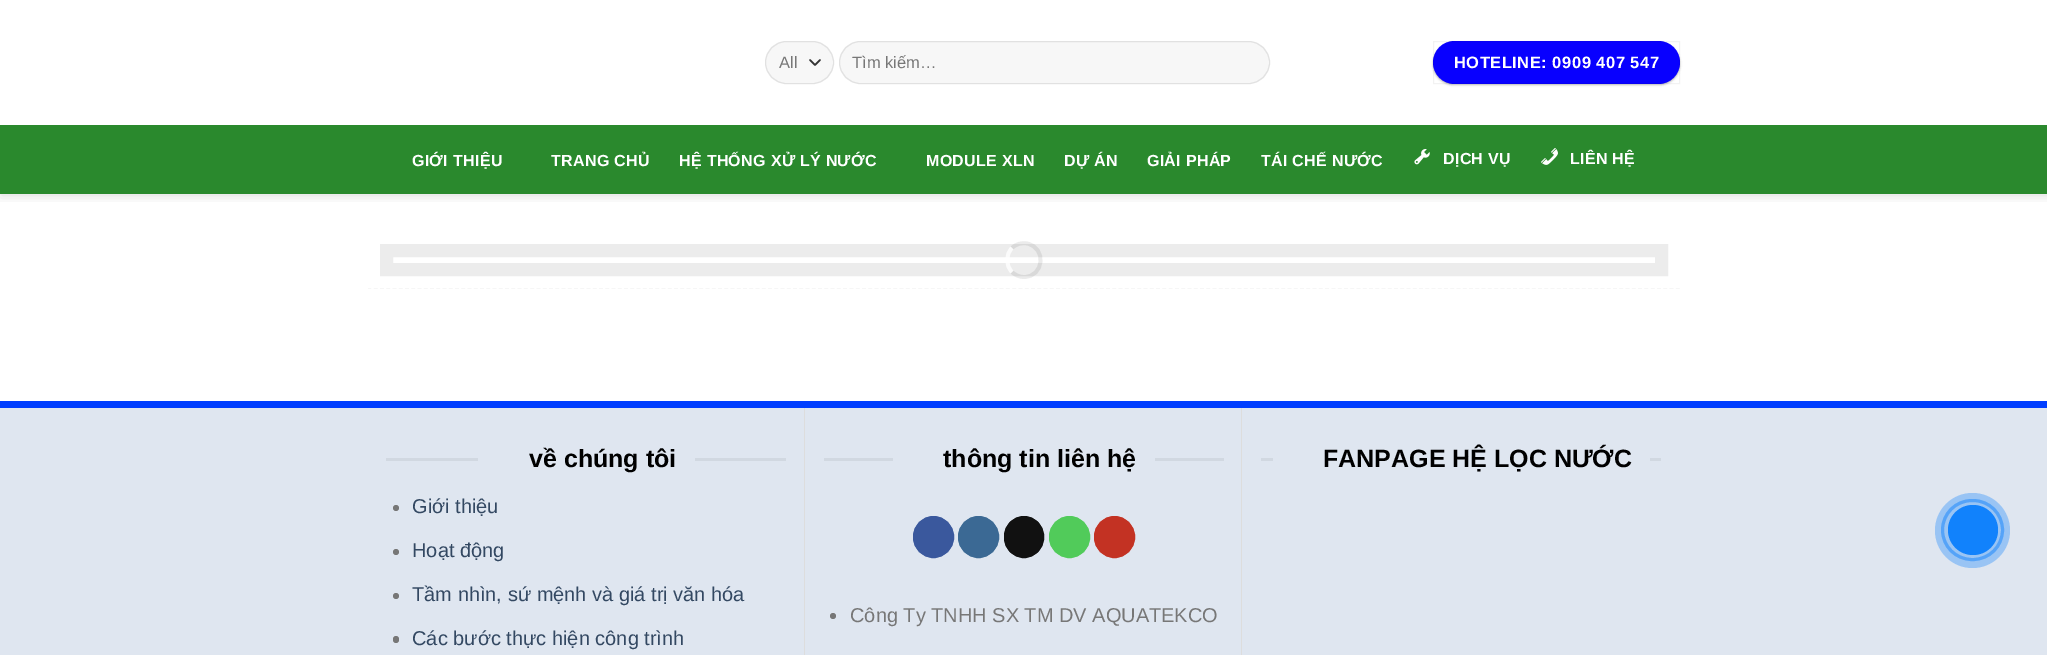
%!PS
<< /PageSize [2047 655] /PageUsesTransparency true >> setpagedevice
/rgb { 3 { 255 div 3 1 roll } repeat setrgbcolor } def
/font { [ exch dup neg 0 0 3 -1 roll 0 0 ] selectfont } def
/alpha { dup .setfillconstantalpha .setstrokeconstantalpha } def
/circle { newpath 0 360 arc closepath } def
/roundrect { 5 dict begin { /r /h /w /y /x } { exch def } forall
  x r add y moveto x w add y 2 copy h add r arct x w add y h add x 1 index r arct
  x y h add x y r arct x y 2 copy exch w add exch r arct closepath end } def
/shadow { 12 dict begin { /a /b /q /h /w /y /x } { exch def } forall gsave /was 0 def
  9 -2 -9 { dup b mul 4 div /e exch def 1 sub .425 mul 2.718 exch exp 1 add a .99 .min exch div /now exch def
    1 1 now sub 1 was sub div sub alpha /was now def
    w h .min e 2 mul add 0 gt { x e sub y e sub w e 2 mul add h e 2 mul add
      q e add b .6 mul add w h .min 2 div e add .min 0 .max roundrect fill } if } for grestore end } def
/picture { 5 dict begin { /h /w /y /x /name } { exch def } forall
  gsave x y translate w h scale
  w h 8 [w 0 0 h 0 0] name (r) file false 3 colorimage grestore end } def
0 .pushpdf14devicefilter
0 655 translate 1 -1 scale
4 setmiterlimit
255 255 255 rgb
0 0 2047 655 rectfill
gsave
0 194 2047 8 rectclip
0 0 0 rgb
1 1 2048 194 0 6 0.15 shadow
grestore
247 247 247 rgb
765 41 69 43 21.5 roundrect fill
51 51 51 rgb
1.7 setlinewidth
1 setlinecap
1 setlinejoin
810 60 moveto 815 65 lineto 820 60 lineto stroke
0.09 alpha
0 0 0 rgb
1 setlinewidth
0 setlinecap
0 setlinejoin
765.5 41.5 68 42 21 roundrect stroke
1 alpha
247 247 247 rgb
839 41 431 43 21.5 roundrect fill
0.09 alpha
0 0 0 rgb
839.5 41.5 430 42 21 roundrect stroke
1 alpha
1433 43 247 42 21 1 0.24 shadow
1435 45 243 38 19 2 0.12 shadow
8 0 255 rgb
1433 41 247 43 21.5 roundrect fill
0.05 alpha
0 0 0 rgb
1433.5 41.5 246 42 rectstroke
1 alpha
42 137 45 rgb
0 125 2047 69 rectfill
(img/1.rgb) 1414 149 16 16 picture
(img/2.rgb) 1541 148 17 17 picture
236 236 236 rgb
13 setlinewidth
386.5 250.5 1275 19 rectstroke
0.08 alpha
0 0 0 rgb
3.8 setlinewidth
1012 248 moveto 1016 244 1021.5 242.5 1027 243.5 curveto 1047 247.5 1044 277 1024 277 curveto 1019.5 277 1015 275 1012 272 curveto stroke
0.8 alpha
255 255 255 rgb
1012 272 moveto 1005.5 265.5 1005.5 254.5 1012 248 curveto stroke
gsave
368 231 1312 58 rectclip
1 alpha
221 221 221 rgb
1.2 setlinewidth
[3.75 2.51] 0 setdash
367.5 289.5 moveto 1680 289.5 lineto stroke
grestore
1 alpha
[
  [0 401 2047 7 0 62 255]
  [0 408 2047 247 223 230 240]
  [386 458 92 3 209 216 225]
  [695 458 91 3 209 216 225]
] { aload pop rgb rectfill } forall
119 119 119 rgb
396 508 3 circle fill
396 552 3 circle fill
396 596 3 circle fill
393 636 6 7 3 roundrect fill
[
  [804 408 1 247 221 221 221]
  [824 458 69 3 209 216 225]
  [1155 458 69 3 209 216 225]
] { aload pop rgb rectfill } forall
58 88 157 rgb
913.5 516.5 40 41 20 roundrect gsave fill grestore
1 setlinewidth
stroke
59 105 148 rgb
958.5 516.5 40 41 20 roundrect gsave fill grestore
stroke
17 17 17 rgb
1004.5 516.5 39 41 19.5 roundrect gsave fill grestore
stroke
81 203 90 rgb
1049.5 516.5 40 41 20 roundrect gsave fill grestore
stroke
195 50 35 rgb
1094.5 516.5 40 41 20 roundrect gsave fill grestore
stroke
119 119 119 rgb
833 616 3 circle fill
[
  [1241 408 1 247 221 221 221]
  [1261 458 12 3 209 216 225]
  [1650 458 11 3 209 216 225]
] { aload pop rgb rectfill } forall
120 180 246 rgb
3 setlinewidth
1942.5 500.5 60 59 29.5 roundrect stroke
0.34 alpha
17 130 252 rgb
1972.5 530.5 37.5 circle fill
1 alpha
1973 530 25 circle fill
/LiberationSans-Regular 16.5 font
119 119 119 rgb
779 68 moveto (All) show
852 68 moveto (Tìm kiếm…) show
/LiberationSans-Bold 16.5 font
255 255 255 rgb
1454 68 moveto 0.5 0 (HOTELINE: 0909 407 547) ashow
/LiberationSans-Bold 16 font
412 166 moveto 0.3 0 (GIỚI THIỆU) ashow
551 166 moveto 0.3 0 (TRANG CHỦ) ashow
679 166 moveto 0.3 0 (HỆ THỐNG XỬ LÝ NƯỚC) ashow
926 166 moveto 0.3 0 (MODULE XLN) ashow
1064 166 moveto 0.3 0 (DỰ ÁN) ashow
1147 166 moveto 0.3 0 (GIẢI PHÁP) ashow
1261 166 moveto 0.3 0 (TÁI CHẾ NƯỚC) ashow
1443 164 moveto 0.3 0 (DỊCH VỤ) ashow
1570 164 moveto 0.3 0 (LIÊN HỆ) ashow
/LiberationSans-Bold 25 font
0 0 0 rgb
529 467 moveto (về chúng tôi) show
/LiberationSans-Regular 20 font
51 72 98 rgb
[
  [(Giới thiệu) 412 513]
  [(Hoạt động) 412 557]
  [(Tầm nhìn, sứ mệnh và giá trị văn hóa) 412 601]
  [(Các bước thực hiện công trình) 412 645]
] { aload pop moveto show } forall
/LiberationSans-Bold 25 font
0 0 0 rgb
943 467 moveto (thông tin liên hệ) show
/LiberationSans-Regular 20 font
119 119 119 rgb
850 622 moveto (Công Ty TNHH SX TM DV AQUATEKCO) show
/LiberationSans-Bold 25 font
0 0 0 rgb
1323 467 moveto (FANPAGE HỆ LỌC NƯỚC) show
.poppdf14devicefilter showpage
